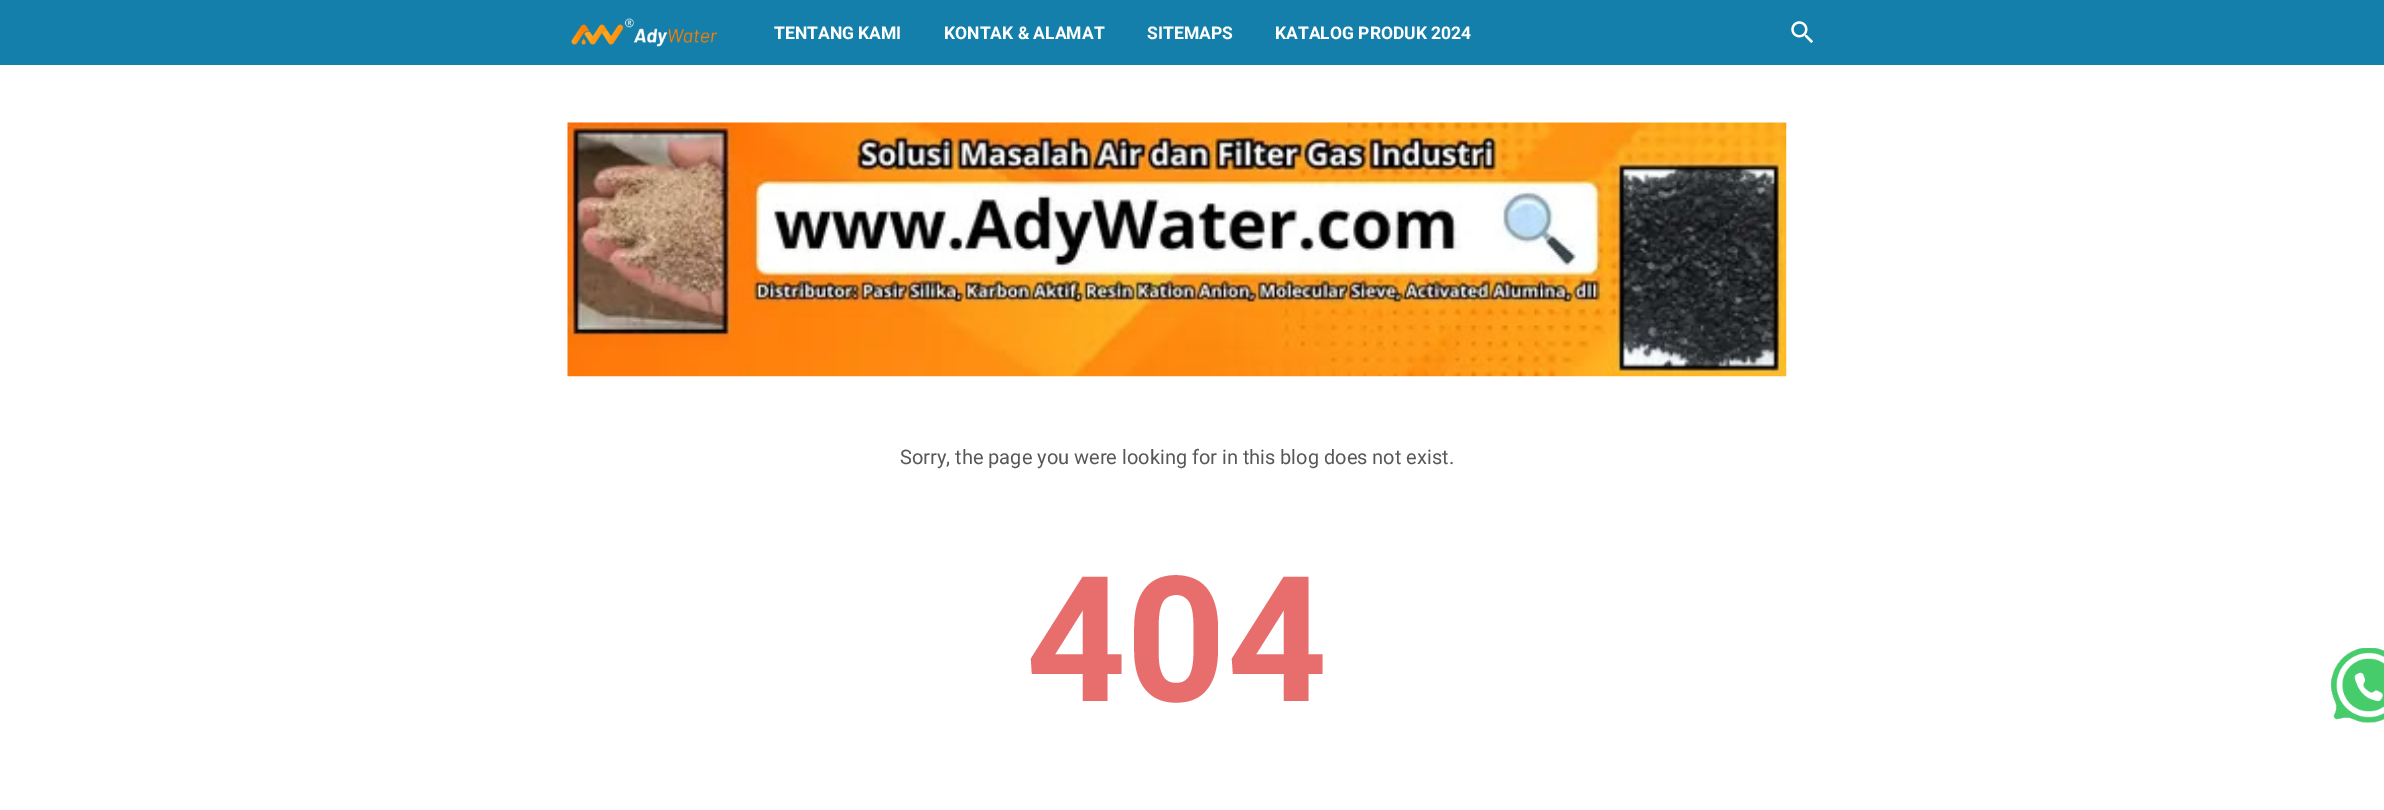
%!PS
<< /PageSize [2384 810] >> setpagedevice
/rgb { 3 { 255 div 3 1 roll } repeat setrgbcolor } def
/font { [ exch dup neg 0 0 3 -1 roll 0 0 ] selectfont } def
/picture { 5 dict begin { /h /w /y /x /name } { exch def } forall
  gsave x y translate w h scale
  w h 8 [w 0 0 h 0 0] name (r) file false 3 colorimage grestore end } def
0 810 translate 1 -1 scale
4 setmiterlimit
255 255 255 rgb
0 0 2384 810 rectfill
19 127 170 rgb
0 0 2384 65 rectfill
(img/1.rgb) 571 18 147 29 picture
(img/2.rgb) 1791 21 22 22 picture
(img/3.rgb) 567 122 1220 255 picture
(img/4.rgb) 2331 648 53 75 picture
/Roboto-Bold 17.5 font
255 255 255 rgb
[
  [(TENTANG KAMI) 774 39]
  [(KONTAK & ALAMAT) 944 39]
  [(SITEMAPS) 1147 39]
  [(KATALOG PRODUK 2024) 1275 39]
] { aload pop moveto show } forall
/Roboto-Regular 20 font
87 87 87 rgb
900 464 moveto (Sorry, the page you were looking for in this blog does not exist.) show
/Roboto-Bold 175 font
232 110 110 rgb
1026 701 moveto (404) show
showpage
